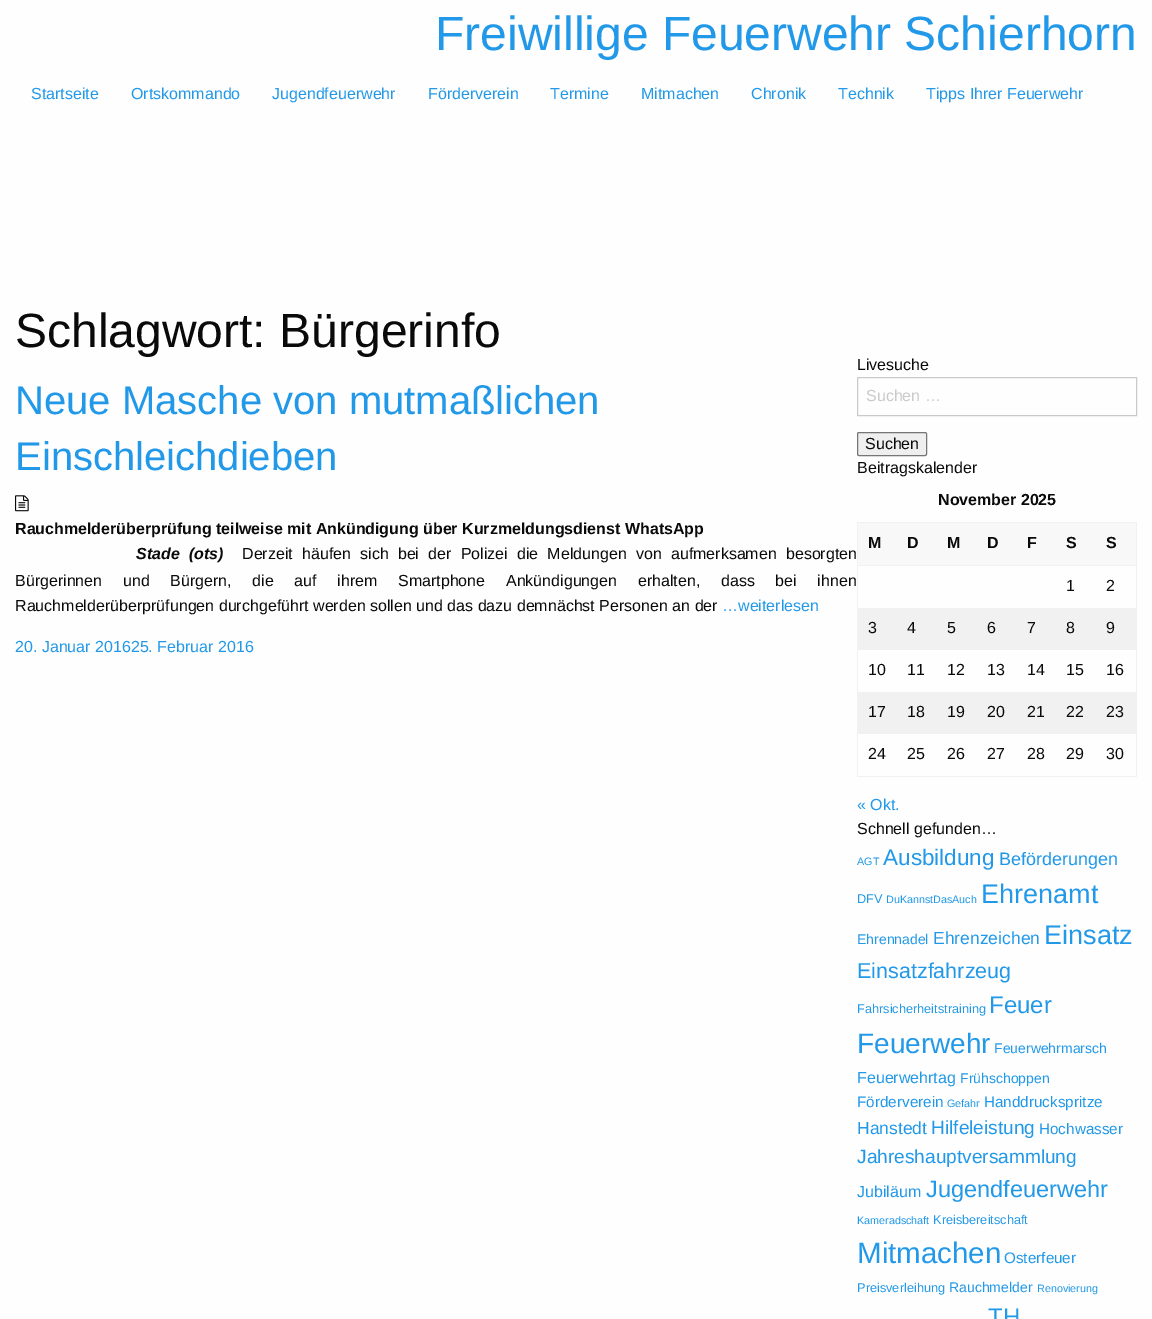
%!PS
<< /PageSize [1152 1319] >> setpagedevice
/rgb { 3 { 255 div 3 1 roll } repeat setrgbcolor } def
/font { [ exch dup neg 0 0 3 -1 roll 0 0 ] selectfont } def
/roundrect { 5 dict begin { /r /h /w /y /x } { exch def } forall
  x r add y moveto x w add y 2 copy h add r arct x w add y h add x 1 index r arct
  x y h add x y r arct x y 2 copy exch w add exch r arct closepath end } def
/picture { 5 dict begin { /h /w /y /x /name } { exch def } forall
  gsave x y translate w h scale
  w h 8 [w 0 0 h 0 0] name (r) file false 3 colorimage grestore end } def
0 1319 translate 1 -1 scale
4 setmiterlimit
254 254 254 rgb
0 0 1152 1319 rectfill
(img/1.rgb) 15 495 14 17 picture
202 202 202 rgb
857.5 377.5 279 38 rectstroke
239 239 239 rgb
857.5 432.5 69 23 1.5 roundrect gsave fill grestore
118 118 118 rgb
stroke
[
  [858 523 278 42 248 248 248]
  [857 522 280 1 241 241 241]
  [857 565 280 1 241 241 241]
  [1136 565 1 212 241 241 241]
  [1136 522 1 44 241 241 241]
  [857 776 280 1 241 241 241]
  [857 565 1 212 241 241 241]
  [857 522 1 44 241 241 241]
  [858 608 278 42 241 241 241]
  [858 692 278 42 241 241 241]
] { aload pop rgb rectfill } forall
/LiberationSans-Regular 48 font
33 153 232 rgb
435 50 moveto (Freiwillige Feuerwehr Schierhorn) show
/LiberationSans-Regular 16 font
[
  [(Startseite) 31 99]
  [(Ortskommando) 131 99]
  [(Jugendfeuerwehr) 272 99]
  [(Förderverein) 428 99]
  [(Termine) 550 99]
  [(Mitmachen) 641 99]
  [(Chronik) 751 99]
  [(Technik) 838 99]
  [(Tipps Ihrer Feuerwehr) 926 99]
] { aload pop moveto show } forall
/LiberationSans-Regular 48 font
10 10 10 rgb
15 347 moveto (Schlagwort: Bürgerinfo) show
/LiberationSans-Regular 40 font
33 153 232 rgb
15 414 moveto (Neue Masche von mutmaßlichen) show
15 470 moveto (Einschleichdieben) show
/LiberationSans-Bold 16 font
10 10 10 rgb
15 534 moveto (Rauchmelderüberprüfung teilweise mit Ankündigung über Kurzmeldungsdienst WhatsApp) show
/LiberationSans-BoldItalic 16 font
136 559 moveto 5 0 32 (Stade \(ots\)) widthshow
/LiberationSans-Regular 16 font
242 559 moveto 4.75 0 32 (Derzeit häufen sich bei der Polizei die Meldungen von aufmerksamen besorgten) widthshow
15 586 moveto 16.25 0 32 (Bürgerinnen und Bürgern, die auf ihrem Smartphone Ankündigungen erhalten, dass bei ihnen) widthshow
15 611 moveto (Rauchmelderüberprüfungen durchgeführt werden sollen und das dazu demnächst Personen an der) show
33 153 232 rgb
722 611 moveto (…weiterlesen) show
15 652 moveto (20. Januar 201625. Februar 2016) show
10 10 10 rgb
857 370 moveto (Livesuche) show
202 202 202 rgb
866 401 moveto (Suchen …) show
10 10 10 rgb
865 449 moveto (Suchen) show
857 473 moveto (Beitragskalender) show
/LiberationSans-Bold 16 font
[
  [(November 2025) 938 505]
  [(M) 868 548]
  [(D) 907 548]
  [(M) 947 548]
  [(D) 987 548]
  [(F) 1027 548]
  [(S) 1066 548]
  [(S) 1106 548]
] { aload pop moveto show } forall
/LiberationSans-Regular 16 font
[
  [(1) 1066 591]
  [(2) 1106 591]
  [(3) 868 633]
  [(4) 907 633]
  [(5) 947 633]
  [(6) 987 633]
  [(7) 1027 633]
  [(8) 1066 633]
  [(9) 1106 633]
  [(10) 868 675]
  [(11) 907 675]
  [(12) 947 675]
  [(13) 987 675]
  [(14) 1027 675]
  [(15) 1066 675]
  [(16) 1106 675]
  [(17) 868 717]
  [(18) 907 717]
  [(19) 947 717]
  [(20) 987 717]
  [(21) 1027 717]
  [(22) 1066 717]
  [(23) 1106 717]
  [(24) 868 759]
  [(25) 907 759]
  [(26) 947 759]
  [(27) 987 759]
  [(28) 1027 759]
  [(29) 1066 759]
  [(30) 1106 759]
] { aload pop moveto show } forall
33 153 232 rgb
857 810 moveto (« Okt.) show
10 10 10 rgb
857 834 moveto (Schnell gefunden…) show
/LiberationSans-Regular 10.75 font
33 153 232 rgb
857 865 moveto (AGT) show
/LiberationSans-Regular 22.5 font
883 865 moveto (Ausbildung) show
/LiberationSans-Regular 18 font
999 865 moveto (Beförderungen) show
/LiberationSans-Regular 12.75 font
857 903 moveto (DFV) show
/LiberationSans-Regular 10.75 font
886 903 moveto (DuKannstDasAuch) show
/LiberationSans-Regular 27 font
981 903 moveto (Ehrenamt) show
/LiberationSans-Regular 14 font
857 944 moveto (Ehrennadel) show
/LiberationSans-Regular 17.5 font
933 944 moveto (Ehrenzeichen) show
/LiberationSans-Regular 27 font
1044 944 moveto (Einsatz) show
/LiberationSans-Regular 21.5 font
857 978 moveto (Einsatzfahrzeug) show
/LiberationSans-Regular 12.75 font
857 1013 moveto (Fahrsicherheitstraining) show
/LiberationSans-Regular 24 font
989 1013 moveto (Feuer) show
/LiberationSans-Regular 28 font
857 1053 moveto (Feuerwehr) show
/LiberationSans-Regular 14 font
994 1053 moveto (Feuerwehrmarsch) show
/LiberationSans-Regular 16 font
857 1083 moveto (Feuerwehrtag) show
/LiberationSans-Regular 14 font
960 1083 moveto (Frühschoppen) show
/LiberationSans-Regular 15.25 font
857 1107 moveto (Förderverein) show
/LiberationSans-Regular 10.75 font
947 1107 moveto (Gefahr) show
/LiberationSans-Regular 15.25 font
984 1107 moveto (Handdruckspritze) show
/LiberationSans-Regular 17.5 font
857 1134 moveto (Hanstedt) show
/LiberationSans-Regular 19.1 font
931 1134 moveto (Hilfeleistung) show
/LiberationSans-Regular 15.25 font
1039 1134 moveto (Hochwasser) show
/LiberationSans-Regular 19.1 font
857 1163 moveto (Jahreshauptversammlung) show
/LiberationSans-Regular 16 font
857 1197 moveto (Jubiläum) show
/LiberationSans-Regular 23.5 font
926 1197 moveto (Jugendfeuerwehr) show
/LiberationSans-Regular 10.75 font
857 1224 moveto (Kameradschaft) show
/LiberationSans-Regular 12.75 font
933 1224 moveto (Kreisbereitschaft) show
/LiberationSans-Regular 29.5 font
857 1263 moveto (Mitmachen) show
/LiberationSans-Regular 15.25 font
1004 1263 moveto (Osterfeuer) show
/LiberationSans-Regular 12.75 font
857 1292 moveto (Preisverleihung) show
/LiberationSans-Regular 14 font
949 1292 moveto (Rauchmelder) show
/LiberationSans-Regular 10.75 font
1037 1292 moveto (Renovierung) show
/LiberationSans-Regular 24 font
988 1325 moveto (TH) show
showpage
